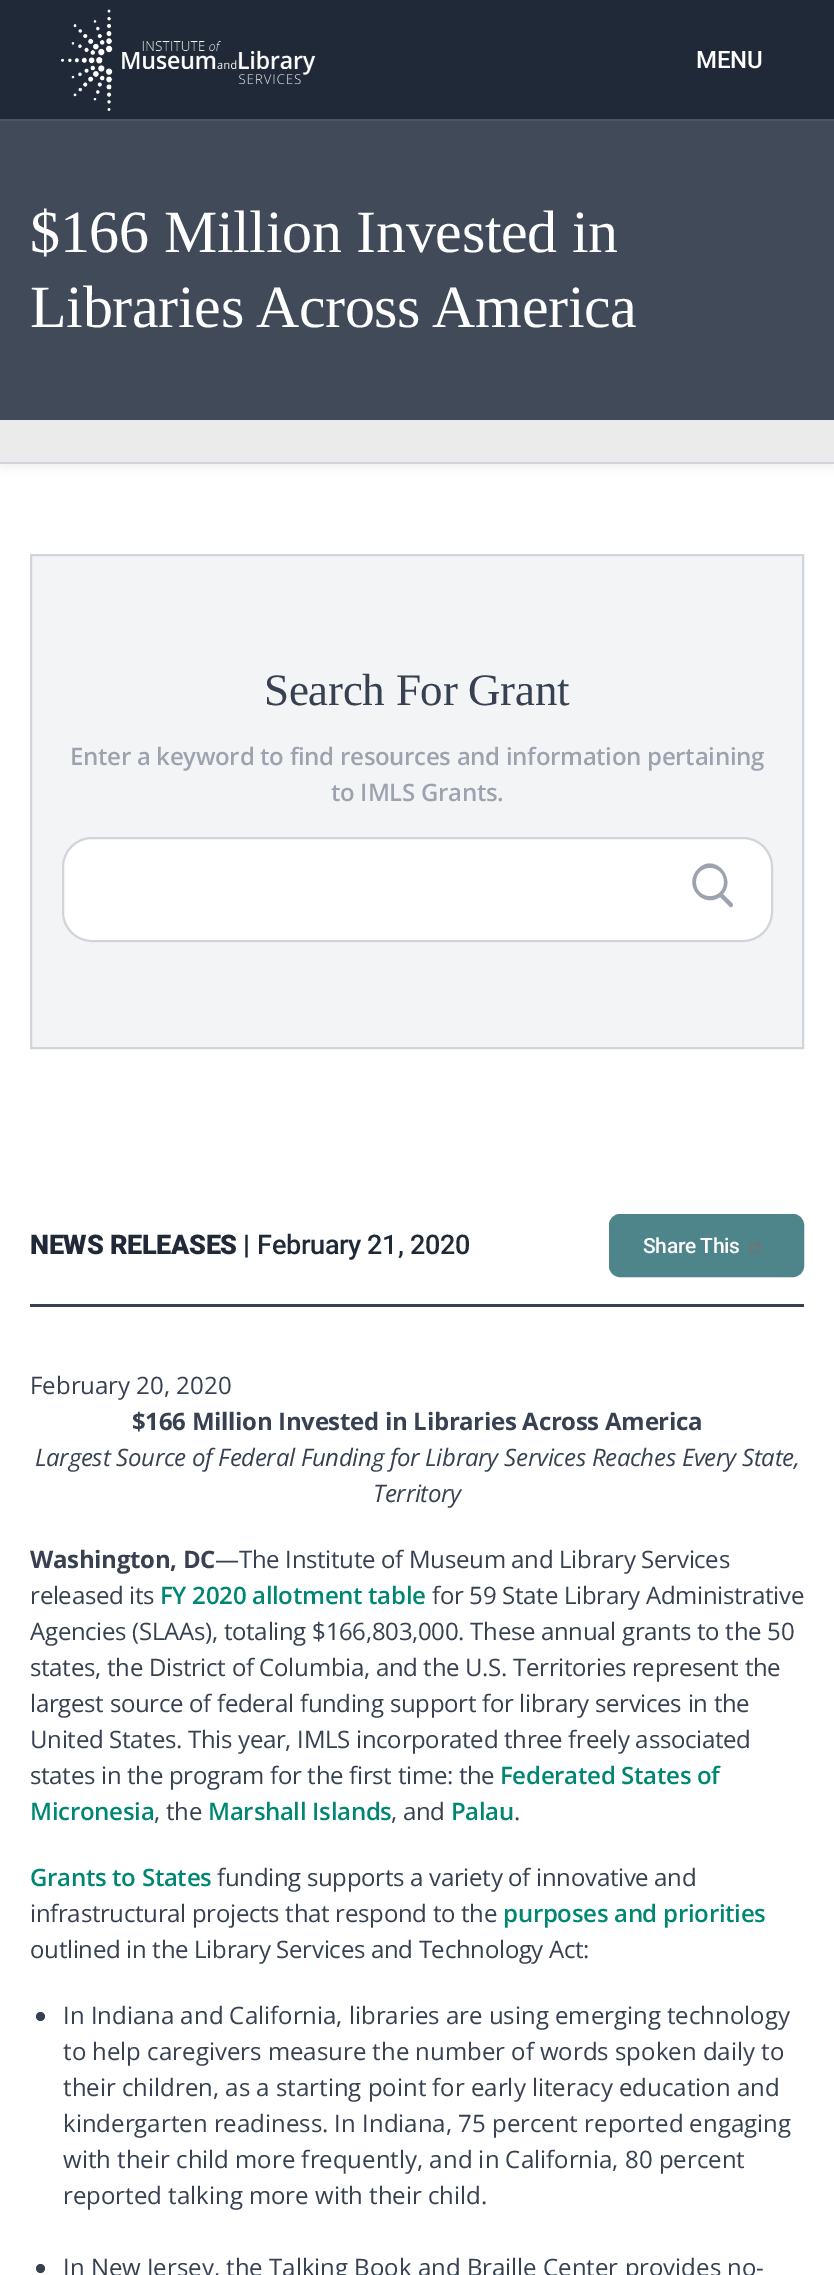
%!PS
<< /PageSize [834 2275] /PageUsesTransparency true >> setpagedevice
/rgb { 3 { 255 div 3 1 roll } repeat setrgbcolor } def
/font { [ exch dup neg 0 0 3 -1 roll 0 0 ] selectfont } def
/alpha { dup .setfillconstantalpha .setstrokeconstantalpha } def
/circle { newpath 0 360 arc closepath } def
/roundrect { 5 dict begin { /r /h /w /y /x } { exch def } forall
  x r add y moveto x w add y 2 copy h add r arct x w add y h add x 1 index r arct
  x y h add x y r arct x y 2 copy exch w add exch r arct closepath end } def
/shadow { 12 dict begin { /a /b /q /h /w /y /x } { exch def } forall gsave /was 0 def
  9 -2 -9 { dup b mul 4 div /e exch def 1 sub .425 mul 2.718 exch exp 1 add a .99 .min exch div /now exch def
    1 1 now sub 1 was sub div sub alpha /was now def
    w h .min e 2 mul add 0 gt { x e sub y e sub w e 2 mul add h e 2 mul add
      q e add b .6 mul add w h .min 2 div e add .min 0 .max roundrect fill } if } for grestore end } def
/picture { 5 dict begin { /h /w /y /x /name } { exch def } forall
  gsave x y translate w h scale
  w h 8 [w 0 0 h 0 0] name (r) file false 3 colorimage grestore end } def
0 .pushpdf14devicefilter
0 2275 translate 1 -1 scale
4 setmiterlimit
255 255 255 rgb
0 0 834 2275 rectfill
31 41 55 rgb
0 0 834 119 rectfill
75 85 99 rgb
0 119 834 2 rectfill
(img/1.rgb) 60 9 255 102 picture
0 0 0 rgb
0 425 834 43 0 4.5 0.05 shadow
[
  [0 121 834 299 65 74 89]
  [0 420 834 42 235 235 235]
  [0 462 834 2 209 213 219]
] { aload pop rgb rectfill } forall
243 244 246 rgb
31 555 moveto 803 555 lineto 803 1048 lineto 31 1048 lineto closepath gsave fill grestore
209 213 219 rgb
2 setlinewidth
stroke
255 255 255 rgb
63 838 709 103 29 roundrect gsave fill grestore
209 213 219 rgb
stroke
156 163 175 rgb
732 903 moveto 723 894 lineto 737 878 714 852 698 869 curveto 682 885 703 909 720 897 curveto 730 907 lineto 732 908 734 905 732 903 curveto closepath 696 882 moveto 696 863 724 863 724 882 curveto 724 901 696 901 696 882 curveto closepath fill
55 65 81 rgb
30 1304 774 3 rectfill
77 133 139 rgb
610.5 1215.5 192 60 9.5 roundrect gsave fill grestore
3 setlinewidth
stroke
(img/2.rgb) 749 1241 12 13 picture
55 65 81 rgb
40.5 2016.5 4.5 circle fill
40.5 2268.5 4.5 circle fill
/Roboto-Medium 24 font
255 255 255 rgb
696 68 moveto -0.25 0 (MENU) ashow
/LiberationSerif-Regular 60 font
30 252 moveto -0.3 0 ($166 Million Invested in) ashow
30 327 moveto -3 0 32 -0.3 0 (Libraries Across America) awidthshow
/LiberationSerif-Regular 45 font
55 65 81 rgb
264 705 moveto -0.3 0 (Search For Grant) ashow
/OpenSans-SemiBold 24 font
156 163 175 rgb
70 765 moveto -0.3 0 (Enter a keyword to find resources and information pertaining) ashow
331 801 moveto -0.3 0 (to IMLS Grants.) ashow
/Roboto-Black 27 font
31 41 55 rgb
30 1254 moveto -0.3 0 (NEWS RELEASES |) ashow
/Roboto-Medium 27 font
257 1254 moveto -0.3 0 (February 21, 2020) ashow
/Roboto-Medium 21 font
255 255 255 rgb
643 1253 moveto -1 0 32 -0.25 0 (Share This) awidthshow
/OpenSans-Regular 24 font
55 65 81 rgb
30 1394 moveto (February 20, 2020) show
/OpenSans-Bold 24 font
132 1430 moveto -0.3 0 ($166 Million Invested in Libraries Across America) ashow
/OpenSans-Italic 24 font
35 1466 moveto -0.3 0 (Largest Source of Federal Funding for Library Services Reaches Every State,) ashow
373 1502 moveto -0.3 0 (Territory) ashow
/OpenSans-Bold 24 font
30 1568 moveto -0.3 0 (Washington, DC) ashow
/OpenSans-Regular 24 font
215 1568 moveto -0.3 0 (—The Institute of Museum and Library Services) ashow
30 1604 moveto -0.3 0 (released its) ashow
/OpenSans-SemiBold 24 font
0 135 115 rgb
160 1604 moveto -0.3 0 (FY 2020 allotment table) ashow
/OpenSans-Regular 24 font
55 65 81 rgb
432 1604 moveto -0.3 0 (for 59 State Library Administrative) ashow
30 1640 moveto -0.3 0 (Agencies \(SLAAs\), totaling $166,803,000. These annual grants to the 50) ashow
30 1676 moveto -0.3 0 (states, the District of Columbia, and the U.S. Territories represent the) ashow
30 1712 moveto -0.3 0 (largest source of federal funding support for library services in the) ashow
30 1748 moveto -0.3 0 (United States. This year, IMLS incorporated three freely associated) ashow
30 1784 moveto -0.3 0 (states in the program for the first time: the) ashow
/OpenSans-SemiBold 24 font
0 135 115 rgb
500 1784 moveto -0.3 0 (Federated States of) ashow
30 1820 moveto -0.3 0 (Micronesia) ashow
/OpenSans-Regular 24 font
55 65 81 rgb
154 1820 moveto -0.3 0 (, the) ashow
/OpenSans-SemiBold 24 font
0 135 115 rgb
208 1820 moveto -0.3 0 (Marshall Islands) ashow
/OpenSans-Regular 24 font
55 65 81 rgb
391 1820 moveto -0.3 0 (, and) ashow
/OpenSans-SemiBold 24 font
0 135 115 rgb
451 1820 moveto -0.3 0 (Palau) ashow
/OpenSans-Regular 24 font
55 65 81 rgb
514 1820 moveto -0.3 0 (.) ashow
/OpenSans-SemiBold 24 font
0 135 115 rgb
30 1886 moveto -0.3 0 (Grants to States) ashow
/OpenSans-Regular 24 font
55 65 81 rgb
217 1886 moveto -0.3 0 (funding supports a variety of innovative and) ashow
30 1922 moveto -0.3 0 (infrastructural projects that respond to the) ashow
/OpenSans-SemiBold 24 font
0 135 115 rgb
503 1922 moveto -0.3 0 (purposes and priorities) ashow
/OpenSans-Regular 24 font
55 65 81 rgb
30 1958 moveto -0.3 0 (outlined in the Library Services and Technology Act:) ashow
[
  [(In Indiana and California, libraries are using emerging technology) 63 2024]
  [(to help caregivers measure the number of words spoken daily to) 63 2060]
  [(their children, as a starting point for early literacy education and) 63 2096]
  [(kindergarten readiness. In Indiana, 75 percent reported engaging) 63 2132]
  [(with their child more frequently, and in California, 80 percent) 63 2168]
  [(reported talking more with their child.) 63 2204]
  [(In New Jersey, the Talking Book and Braille Center provides no-) 63 2276]
] { aload pop moveto show } forall
.poppdf14devicefilter showpage
